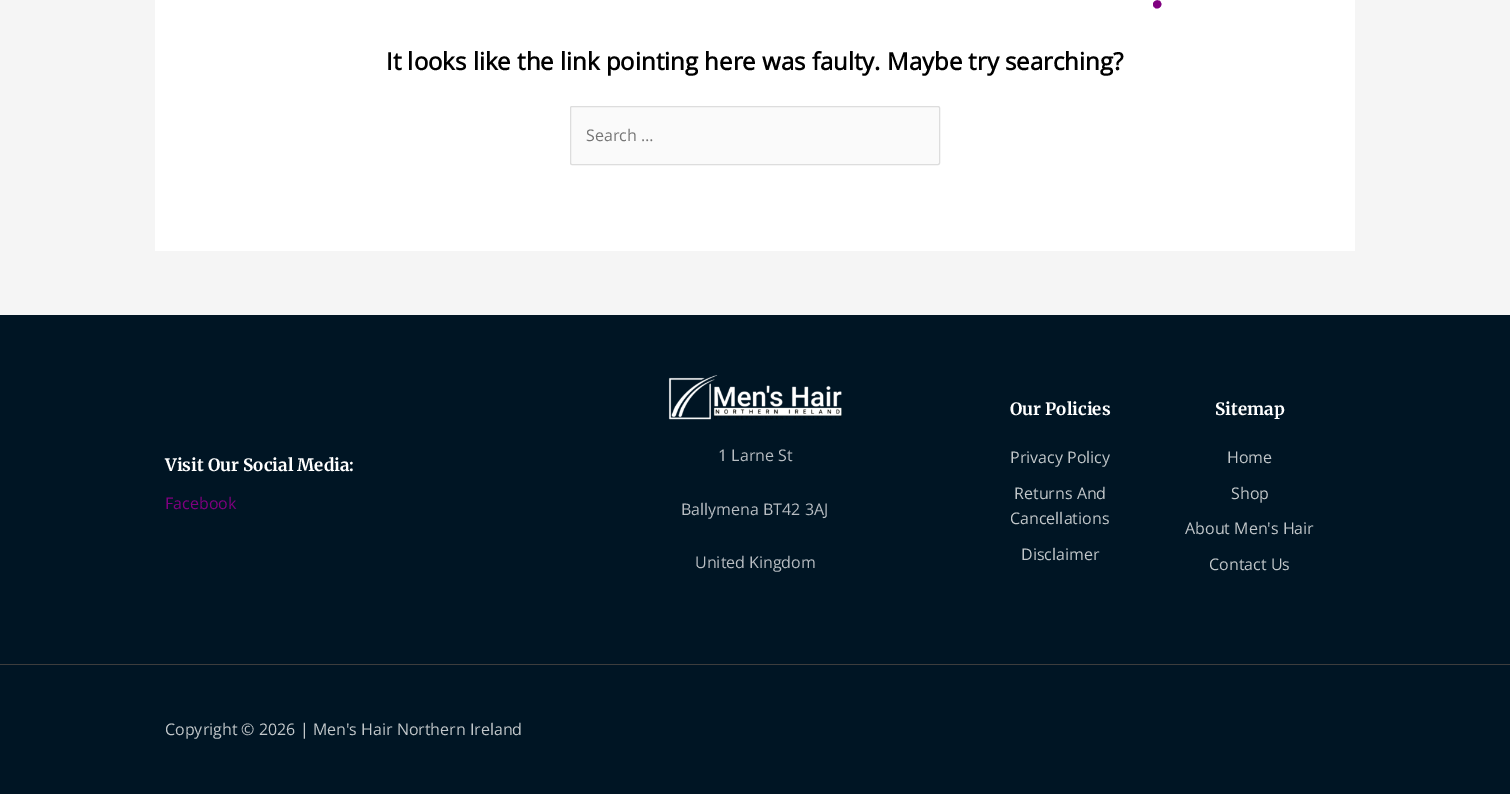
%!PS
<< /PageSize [1510 794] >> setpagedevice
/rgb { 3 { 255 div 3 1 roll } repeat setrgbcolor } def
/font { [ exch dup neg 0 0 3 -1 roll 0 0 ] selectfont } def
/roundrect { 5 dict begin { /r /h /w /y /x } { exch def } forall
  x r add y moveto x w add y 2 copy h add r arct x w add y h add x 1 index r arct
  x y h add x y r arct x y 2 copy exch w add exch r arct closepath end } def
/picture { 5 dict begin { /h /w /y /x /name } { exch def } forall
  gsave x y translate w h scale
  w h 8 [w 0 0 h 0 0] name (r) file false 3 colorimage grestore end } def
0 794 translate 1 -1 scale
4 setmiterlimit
245 245 245 rgb
0 0 1510 794 rectfill
255 255 255 rgb
155 0 1200 251 rectfill
250 250 250 rgb
570.5 106.5 369 58 1.5 roundrect gsave fill grestore
221 221 221 rgb
stroke
0 21 36 rgb
0 315 1510 349 rectfill
(img/1.rgb) 668 375 174 45 picture
0 665 1510 129 rectfill
61 61 61 rgb
0 664 1510 1 rectfill
/Merriweather-Light 52 font
128 0 128 rgb
1150 8 moveto (.) show
/OpenSans-Bold 24 font
0 0 0 rgb
386 70 moveto (It looks like the link pointing here was faulty. Maybe try searching?) show
/OpenSans-Regular 16 font
117 117 117 rgb
586 141 moveto (Search …) show
/Merriweather-Light 17 font
255 255 255 rgb
165 471 moveto (Visit Our Social Media:) show
/OpenSans-Regular 16 font
128 0 128 rgb
165 509 moveto (Facebook) show
184 189 194 rgb
[
  [(1 Larne St) 718 461]
  [(Ballymena BT42 3AJ) 681 515]
  [(United Kingdom) 695 568]
] { aload pop moveto show } forall
/Merriweather-Light 17 font
255 255 255 rgb
1010 415 moveto (Our Policies) show
/OpenSans-Regular 16 font
194 199 202 rgb
[
  [(Privacy Policy) 1010 463]
  [(Returns And) 1014 499]
  [(Cancellations) 1010 524]
  [(Disclaimer) 1021 560]
] { aload pop moveto show } forall
/Merriweather-Light 17 font
255 255 255 rgb
1215 415 moveto (Sitemap) show
/OpenSans-Regular 16 font
194 199 202 rgb
[
  [(Home) 1227 463]
  [(Shop) 1231 499]
  [(About Men's Hair) 1185 534]
  [(Contact Us) 1209 570]
  [(Copyright © 2026 | Men's Hair Northern Ireland) 165 735]
] { aload pop moveto show } forall
showpage
